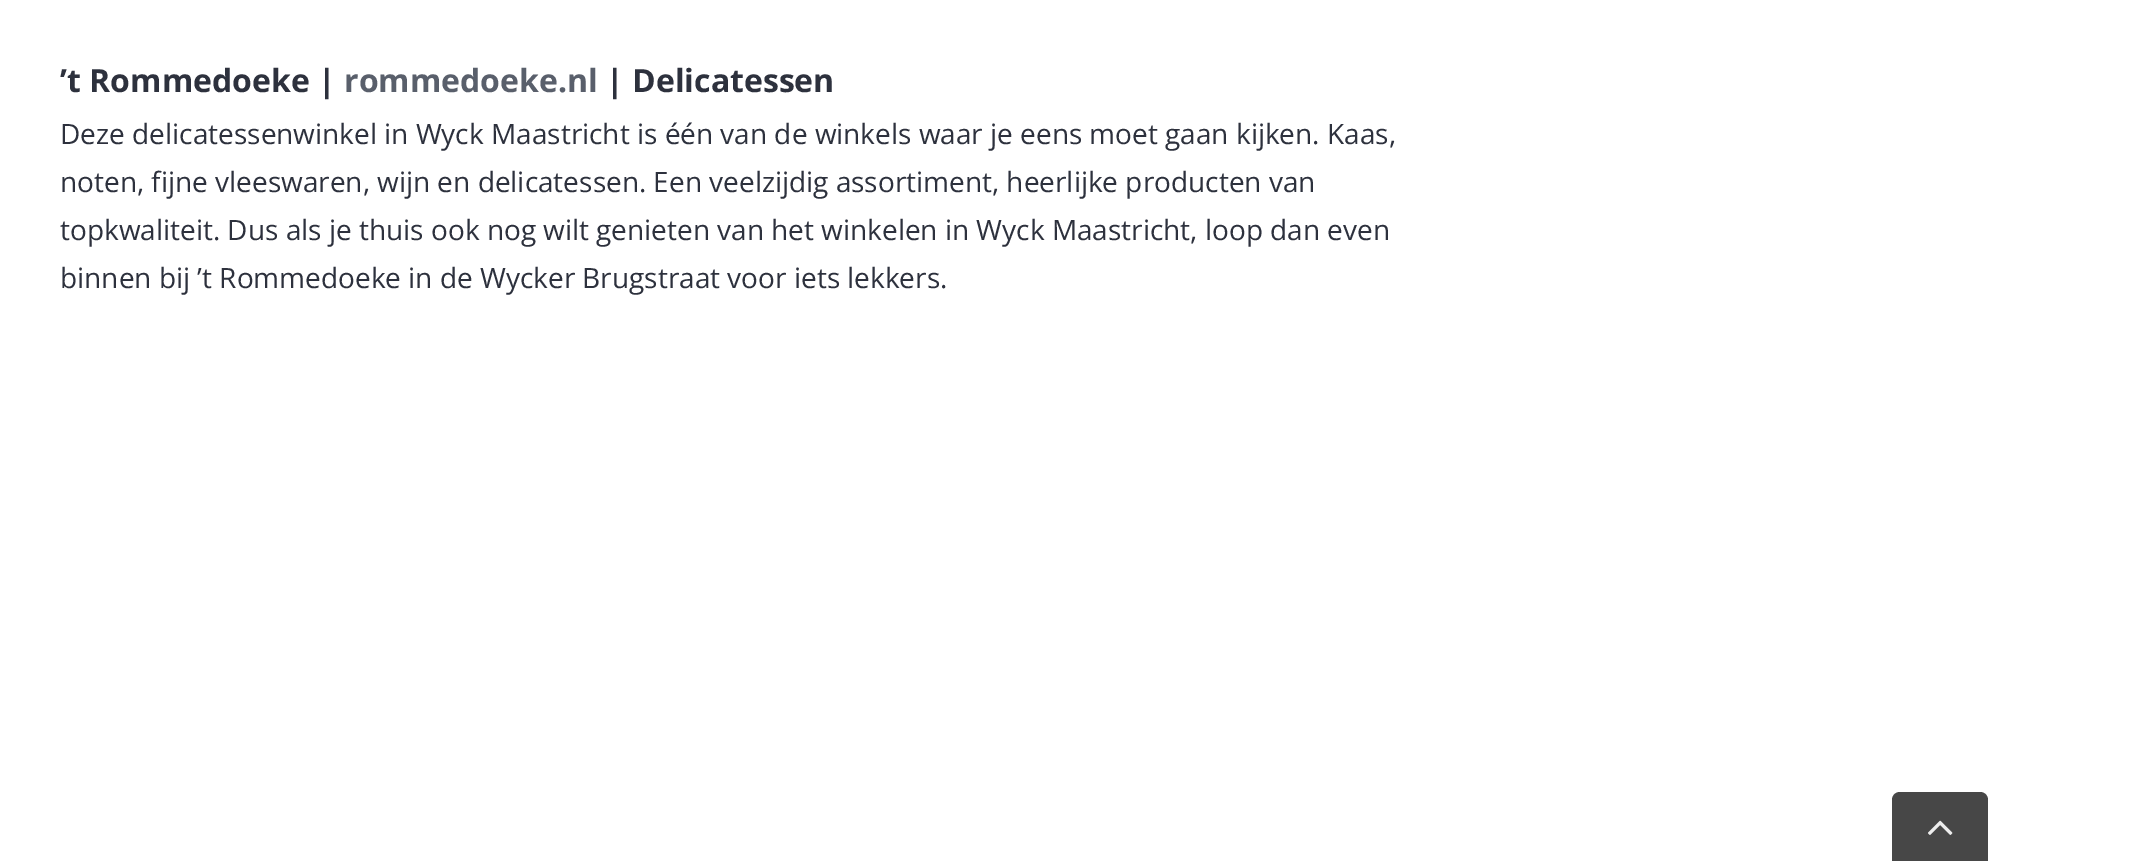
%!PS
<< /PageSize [2138 861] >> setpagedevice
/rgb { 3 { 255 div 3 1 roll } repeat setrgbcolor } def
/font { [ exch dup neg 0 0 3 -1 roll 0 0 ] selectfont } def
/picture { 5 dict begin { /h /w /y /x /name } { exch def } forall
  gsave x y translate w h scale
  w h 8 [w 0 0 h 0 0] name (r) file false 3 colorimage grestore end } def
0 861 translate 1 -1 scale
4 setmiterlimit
255 255 255 rgb
0 0 2138 861 rectfill
71 71 71 rgb
1900 792 moveto 1980 792 lineto 1984.5 792 1988 795.5 1988 800 curveto 1988 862 lineto 1892 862 lineto 1892 800 lineto 1892 795.5 1895.5 792 1900 792 curveto closepath fill
(img/1.rgb) 1928 820 25 15 picture
/OpenSans-Bold 32 font
45 49 61 rgb
60 92 moveto (’t Rommedoeke |) show
89 95 107 rgb
344 92 moveto (rommedoeke.nl) show
45 49 61 rgb
606 92 moveto (| Delicatessen) show
/OpenSans-Regular 28 font
[
  [(Deze delicatessenwinkel in Wyck Maastricht is één van de winkels waar je eens moet gaan kijken. Kaas,) 60 144]
  [(noten, fijne vleeswaren, wijn en delicatessen. Een veelzijdig assortiment, heerlijke producten van) 60 192]
  [(topkwaliteit. Dus als je thuis ook nog wilt genieten van het winkelen in Wyck Maastricht, loop dan even) 60 240]
  [(binnen bij ’t Rommedoeke in de Wycker Brugstraat voor iets lekkers.) 60 288]
] { aload pop moveto show } forall
showpage
